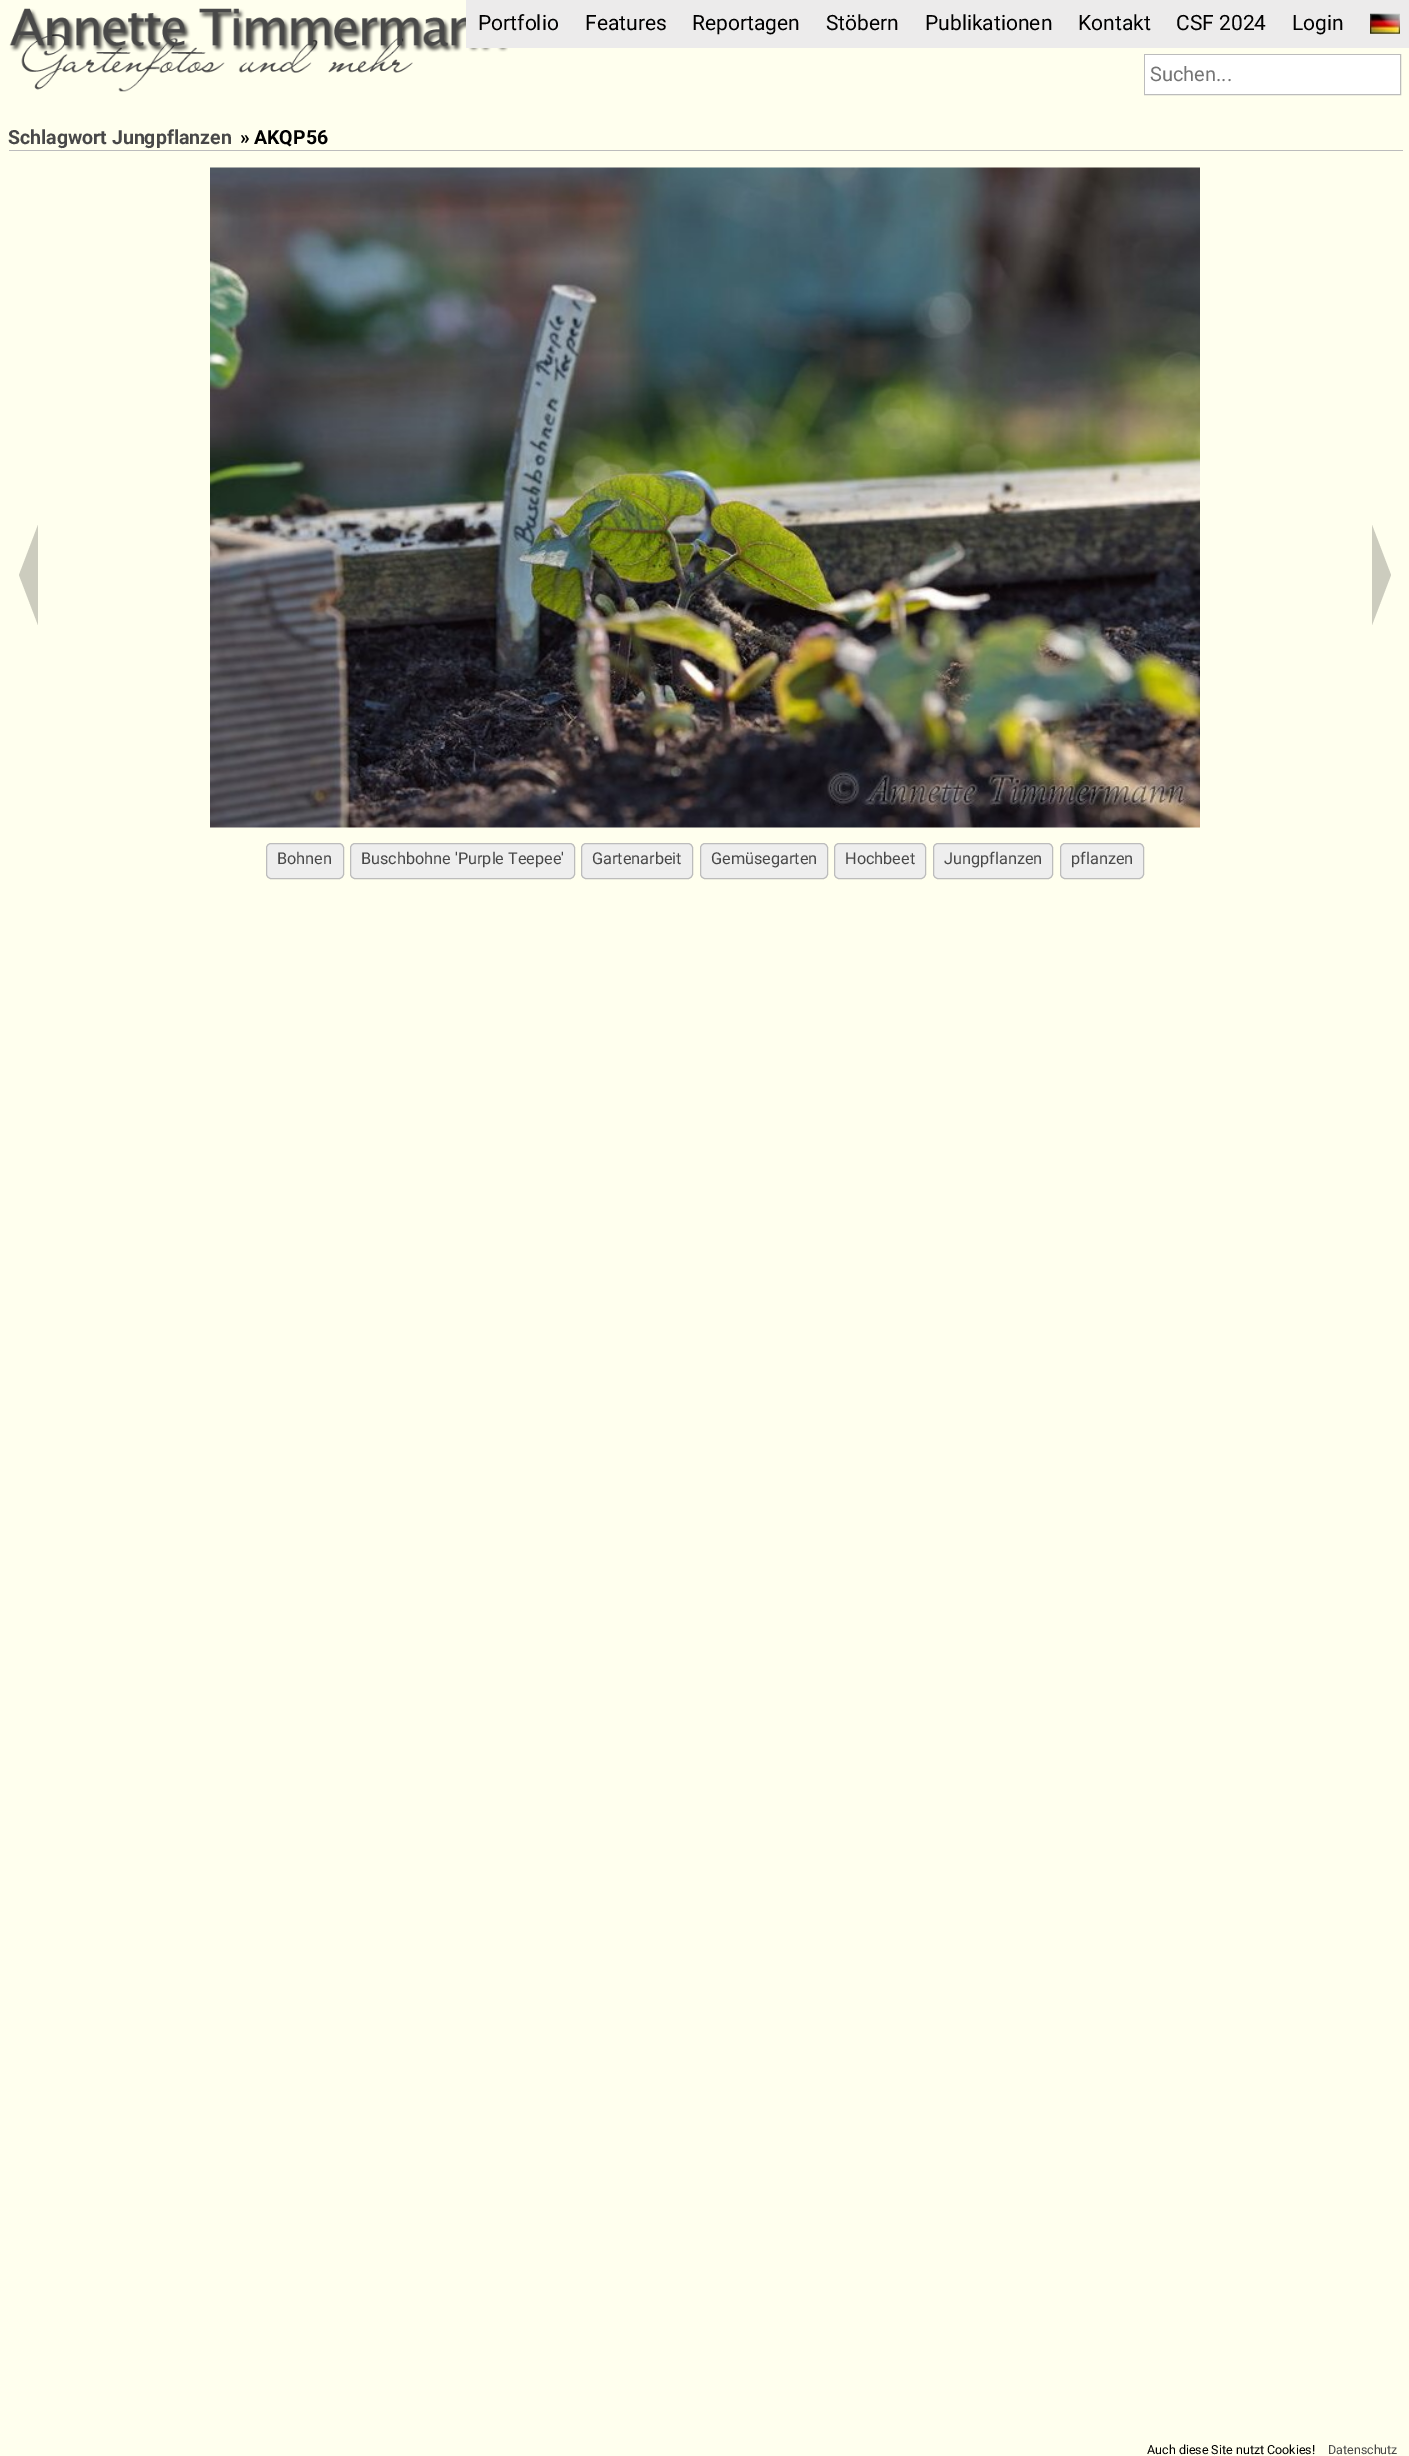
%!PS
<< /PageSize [1409 2456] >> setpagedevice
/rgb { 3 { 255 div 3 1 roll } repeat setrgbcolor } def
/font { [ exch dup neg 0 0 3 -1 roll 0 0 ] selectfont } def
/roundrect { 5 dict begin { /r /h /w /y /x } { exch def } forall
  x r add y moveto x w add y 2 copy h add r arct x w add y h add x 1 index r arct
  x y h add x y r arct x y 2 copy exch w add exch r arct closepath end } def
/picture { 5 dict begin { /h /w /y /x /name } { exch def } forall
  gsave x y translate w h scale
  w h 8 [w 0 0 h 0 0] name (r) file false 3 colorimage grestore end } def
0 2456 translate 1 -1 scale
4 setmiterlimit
255 255 238 rgb
0 0 1409 2456 rectfill
(img/1.rgb) 9 8 499 84 picture
236 235 235 rgb
466 0 943 48 rectfill
(img/2.rgb) 1370 13 30 21 picture
188 188 188 rgb
1144.5 54.5 256 40 rectstroke
255 255 255 rgb
1145 55 255 39 rectfill
188 188 188 rgb
9 150 1394 1 rectfill
204 204 190 rgb
38 525 moveto 38 625 lineto 19 575 lineto closepath fill
(img/3.rgb) 210 167 990 661 picture
1372 625 moveto 1372 525 lineto 1391 575 lineto closepath fill
238 238 238 rgb
266.5 843.5 77 35 4.5 roundrect gsave fill grestore
188 188 188 rgb
stroke
238 238 238 rgb
350.5 843.5 224 35 4.5 roundrect gsave fill grestore
188 188 188 rgb
stroke
238 238 238 rgb
581.5 843.5 111 35 4.5 roundrect gsave fill grestore
188 188 188 rgb
stroke
238 238 238 rgb
700.5 843.5 127 35 4.5 roundrect gsave fill grestore
188 188 188 rgb
stroke
238 238 238 rgb
834.5 843.5 91 35 4.5 roundrect gsave fill grestore
188 188 188 rgb
stroke
238 238 238 rgb
933.5 843.5 119 35 4.5 roundrect gsave fill grestore
188 188 188 rgb
stroke
238 238 238 rgb
1060.5 843.5 83 35 4.5 roundrect gsave fill grestore
188 188 188 rgb
stroke
/Roboto-Regular 21 font
0 0 0 rgb
[
  [(Portfolio) 478 30]
  [(Features) 585 30]
  [(Reportagen) 692 30]
  [(Stöbern) 826 30]
  [(Publikationen) 925 30]
  [(Kontakt) 1078 30]
  [(CSF 2024) 1176 30]
  [(Login) 1292 30]
] { aload pop moveto show } forall
/Roboto-Regular 20 font
117 117 117 rgb
1150 81 moveto (Suchen...) show
/Roboto-Bold 19.5 font
72 72 72 rgb
8 144 moveto (Schlagwort Jungpflanzen) show
0 0 0 rgb
240 144 moveto (») show
254 144 moveto (AKQP56) show
/Roboto-Regular 16.25 font
72 72 72 rgb
[
  [(Bohnen) 277 864]
  [(Buschbohne 'Purple Teepee') 361 864]
  [(Gartenarbeit) 592 864]
  [(Gemüsegarten) 711 864]
  [(Hochbeet) 845 864]
  [(Jungpflanzen) 944 864]
  [(pflanzen) 1071 864]
] { aload pop moveto show } forall
/Roboto-Regular 12.5 font
0 0 0 rgb
1147 2454 moveto (Auch diese Site nutzt Cookies!) show
72 72 72 rgb
1328 2454 moveto (Datenschutz) show
showpage
